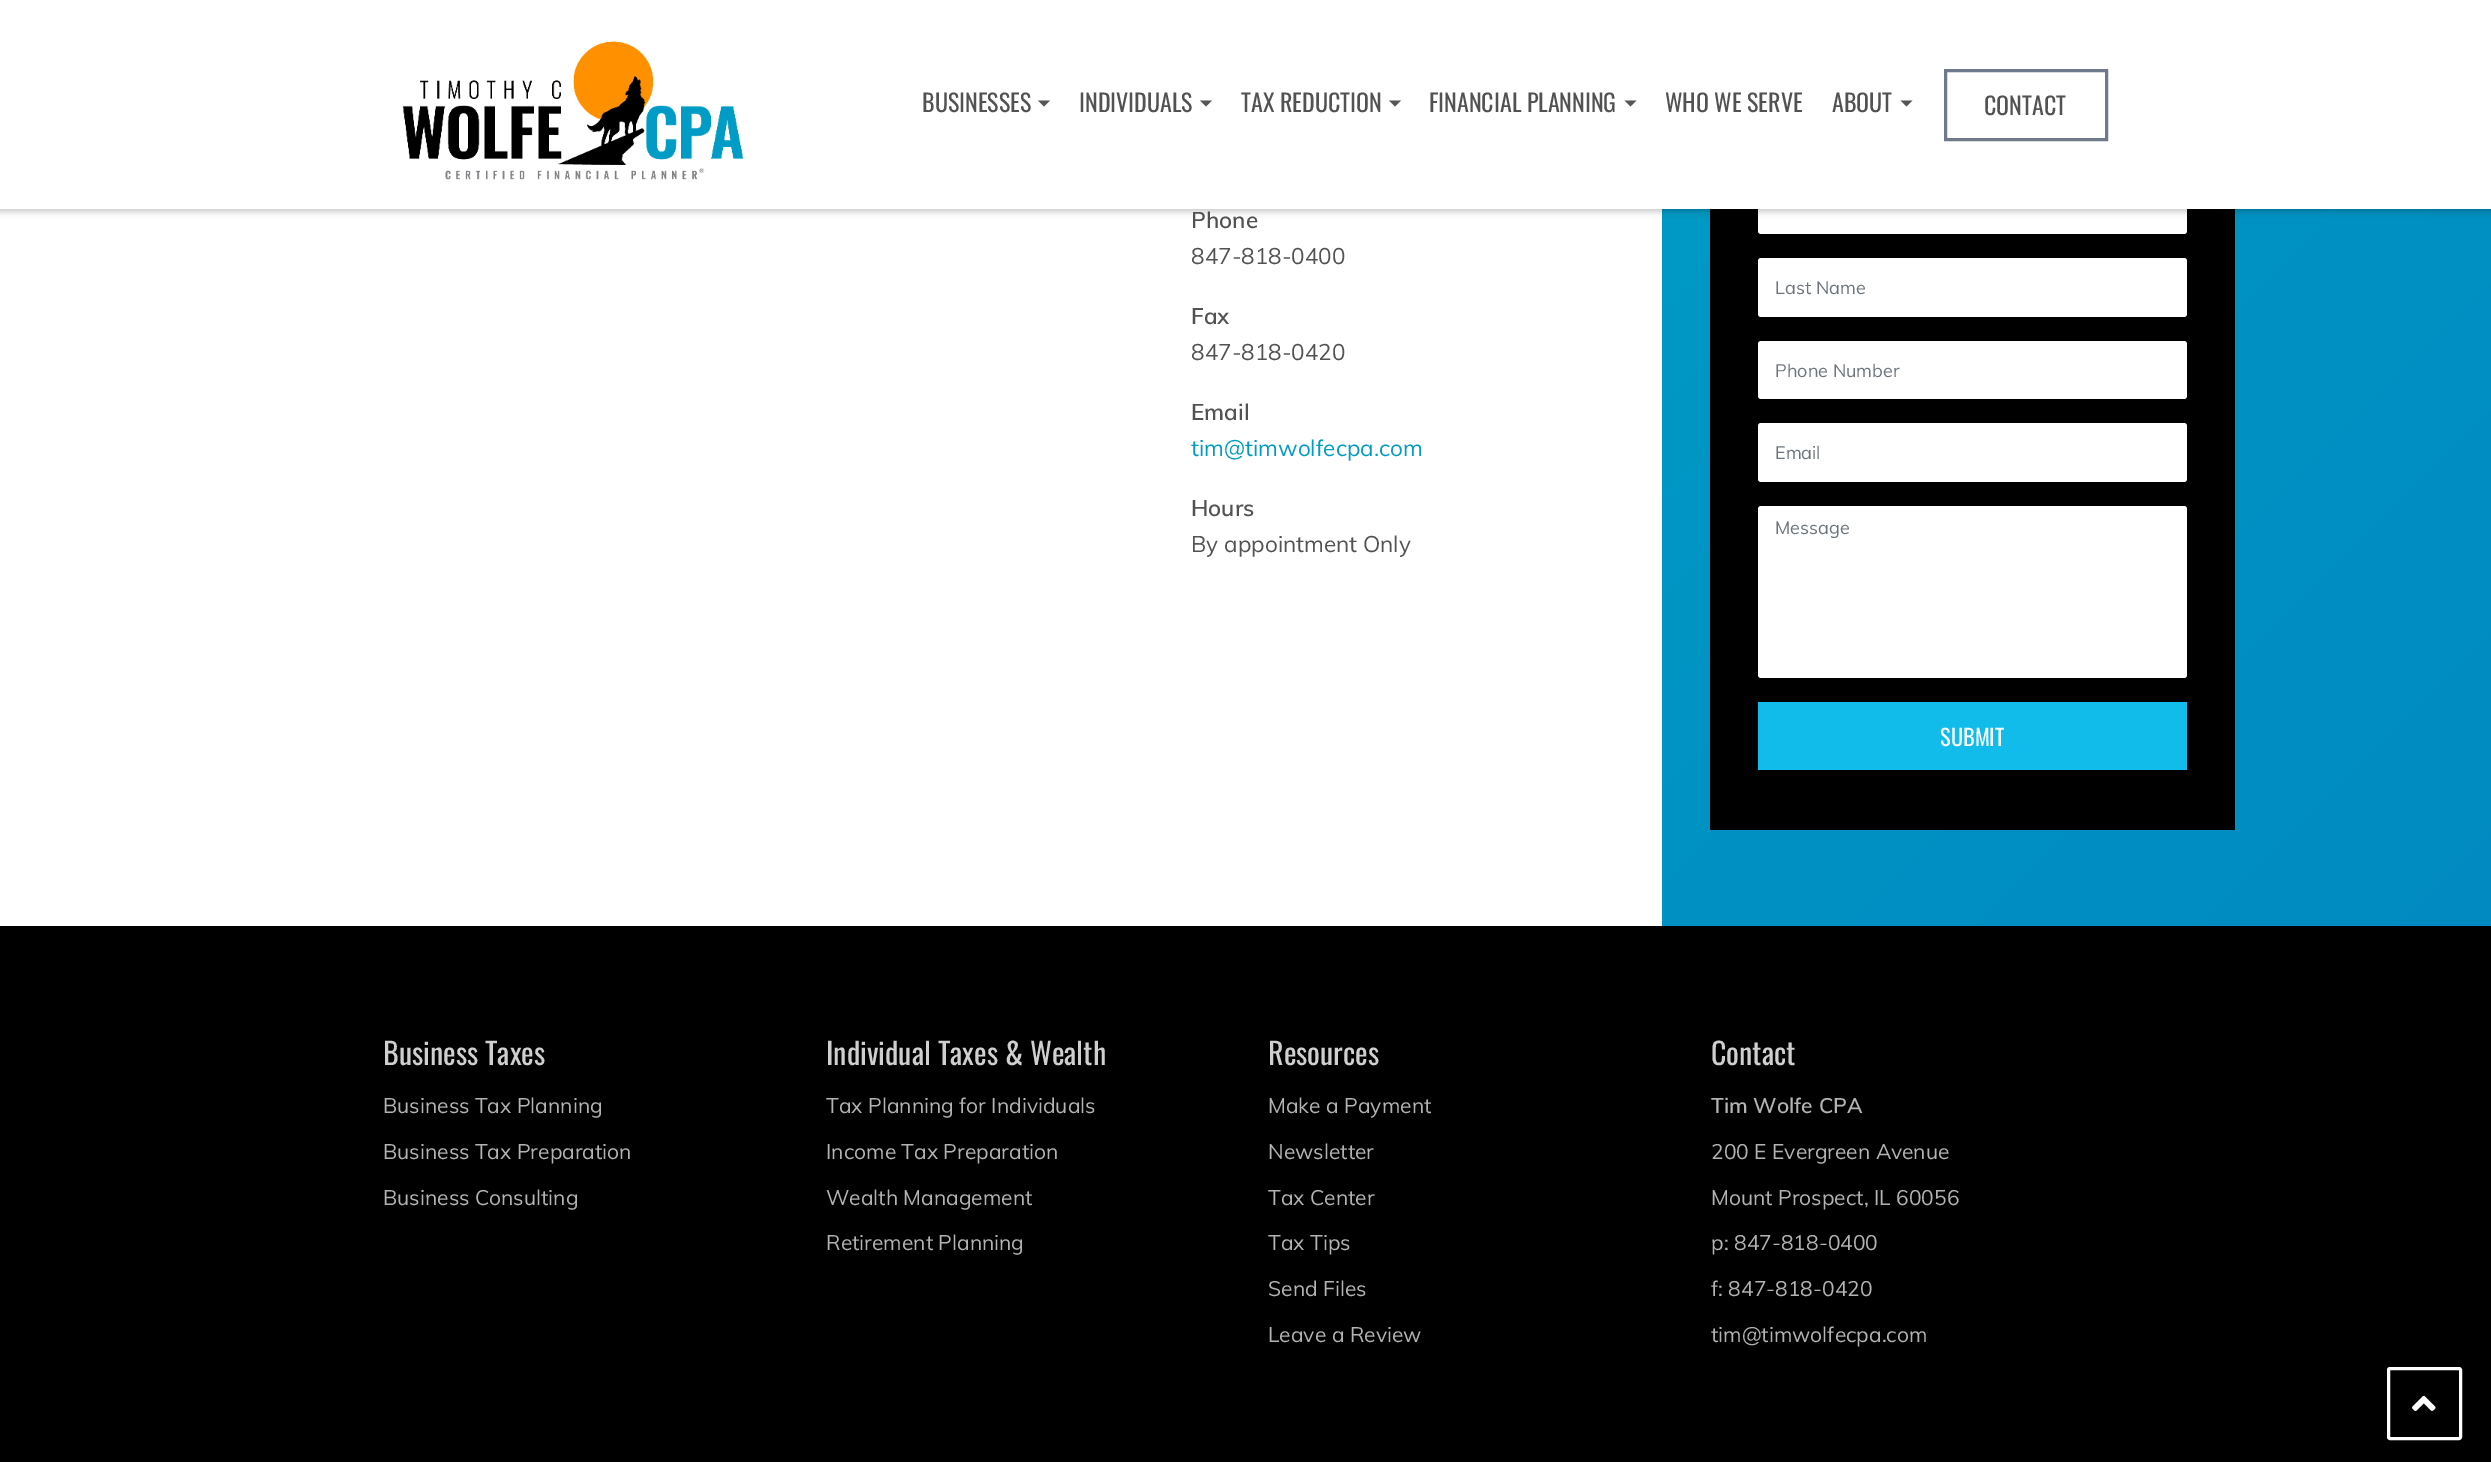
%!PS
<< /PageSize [2491 1462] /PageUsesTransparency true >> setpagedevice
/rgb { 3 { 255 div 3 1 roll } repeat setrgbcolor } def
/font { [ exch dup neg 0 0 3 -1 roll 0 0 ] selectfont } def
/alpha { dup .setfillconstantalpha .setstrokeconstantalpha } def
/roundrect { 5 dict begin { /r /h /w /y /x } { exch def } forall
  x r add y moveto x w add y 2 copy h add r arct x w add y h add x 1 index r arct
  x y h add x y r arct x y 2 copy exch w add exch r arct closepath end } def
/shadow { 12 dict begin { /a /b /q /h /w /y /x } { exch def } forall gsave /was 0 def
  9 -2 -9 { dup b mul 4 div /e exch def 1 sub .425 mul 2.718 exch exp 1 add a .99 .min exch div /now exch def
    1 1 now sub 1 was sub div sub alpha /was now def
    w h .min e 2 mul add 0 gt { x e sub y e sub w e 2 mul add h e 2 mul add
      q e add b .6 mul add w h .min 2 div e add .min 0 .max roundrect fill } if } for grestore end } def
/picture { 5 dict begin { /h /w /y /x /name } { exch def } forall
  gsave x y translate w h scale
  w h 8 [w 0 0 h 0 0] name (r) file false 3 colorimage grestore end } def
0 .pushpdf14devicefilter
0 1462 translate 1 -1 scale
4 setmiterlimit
255 255 255 rgb
0 0 2491 1462 rectfill
gsave 1662 209 moveto 2491 209 lineto 2491 926 lineto 1662 926 lineto closepath clip newpath
<< /ShadingType 2 /ColorSpace /DeviceRGB /Coords [2019 -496 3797 1282] /Extend [true true] /Function << /FunctionType 2 /Domain [0 1] /C0 [0 0.612 0.776] /C1 [0 0.478 0.737] /N 1 >> >> shfill grestore
0 0 0 rgb
1710 209 525 621 rectfill
255 255 255 rgb
1758 176 429 58 3 roundrect fill
0 0 0 rgb
-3 -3 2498 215 0 3 0.2 shadow
255 255 255 rgb
0 0 2491 209 rectfill
(img/1.rgb) 402 41 342 139 picture
86 86 86 rgb
1038 100.5 moveto 1050 100.5 lineto 1044 106.5 lineto closepath fill
1200 100.5 moveto 1212 100.5 lineto 1206 106.5 lineto closepath fill
1389 100.5 moveto 1401 100.5 lineto 1395 106.5 lineto closepath fill
1624.5 100.5 moveto 1636.5 100.5 lineto 1630.5 106.5 lineto closepath fill
1900.5 100.5 moveto 1912.5 100.5 lineto 1906.5 106.5 lineto closepath fill
110 121 140 rgb
3 setlinewidth
1945.5 70.5 161 69 rectstroke
255 255 255 rgb
1758 258 429 59 3 roundrect fill
1758 341 429 58 3 roundrect fill
1758 423 429 59 3 roundrect fill
1758 506 429 172 3 roundrect fill
17 188 235 rgb
1758 702 429 68 rectfill
0 0 0 rgb
0 926 2491 536 rectfill
255 255 255 rgb
2388.5 1368.5 72 70 1.5 roundrect stroke
(img/2.rgb) 2412 1395 24 16 picture
/Oswald-Regular 24 font
82 82 82 rgb
[
  [(BUSINESSES) 922 112]
  [(INDIVIDUALS) 1079 112]
  [(TAX REDUCTION) 1241 112]
  [(FINANCIAL PLANNING) 1429 112]
  [(WHO WE SERVE) 1665 112]
  [(ABOUT) 1832 112]
  [(CONTACT) 1984 115]
] { aload pop moveto show } forall
/Muli-SemiBold 22.5 font
1191 228 moveto (Phone) show
/Muli-Regular 22.5 font
1191 264 moveto (847-818-0400) show
/Muli-SemiBold 22.5 font
1191 324 moveto (Fax) show
/Muli-Regular 22.5 font
1191 360 moveto (847-818-0420) show
/Muli-SemiBold 22.5 font
1191 420 moveto (Email) show
/Muli-Regular 22.5 font
1 156 198 rgb
1191 456 moveto (tim@timwolfecpa.com) show
/Muli-SemiBold 22.5 font
82 82 82 rgb
1191 516 moveto (Hours) show
/Muli-Regular 22.5 font
1191 552 moveto (By appointment Only) show
/Muli-Regular 18 font
108 117 125 rgb
[
  [(Last Name) 1775 294]
  [(Phone Number) 1775 377]
  [(Email) 1775 459]
  [(Message) 1775 534]
] { aload pop moveto show } forall
/Oswald-Regular 22.5 font
255 255 255 rgb
1940 746 moveto (SUBMIT) show
/Oswald-Regular 30 font
207 207 207 rgb
383 1065 moveto (Business Taxes) show
/Muli-Regular 21 font
179 179 179 rgb
[
  [(Business Tax Planning) 383 1113]
  [(Business Tax Preparation) 383 1159]
  [(Business Consulting) 383 1205]
] { aload pop moveto show } forall
/Oswald-Regular 30 font
207 207 207 rgb
826 1065 moveto (Individual Taxes & Wealth) show
/Muli-Regular 21 font
179 179 179 rgb
[
  [(Tax Planning for Individuals) 826 1113]
  [(Income Tax Preparation) 826 1159]
  [(Wealth Management) 826 1205]
  [(Retirement Planning) 826 1250]
] { aload pop moveto show } forall
/Oswald-Regular 30 font
207 207 207 rgb
1268 1065 moveto (Resources) show
/Muli-Regular 21 font
179 179 179 rgb
[
  [(Make a Payment) 1268 1113]
  [(Newsletter) 1268 1159]
  [(Tax Center) 1268 1205]
  [(Tax Tips) 1268 1250]
  [(Send Files) 1268 1296]
  [(Leave a Review) 1268 1342]
] { aload pop moveto show } forall
/Oswald-Regular 30 font
207 207 207 rgb
1711 1065 moveto (Contact) show
/Muli-SemiBold 21 font
179 179 179 rgb
1711 1113 moveto (Tim Wolfe CPA) show
/Muli-Regular 21 font
[
  [(200 E Evergreen Avenue) 1711 1159]
  [(Mount Prospect, IL 60056) 1711 1205]
  [(p: 847-818-0400) 1711 1250]
  [(f: 847-818-0420) 1711 1296]
  [(tim@timwolfecpa.com) 1711 1342]
] { aload pop moveto show } forall
.poppdf14devicefilter showpage
